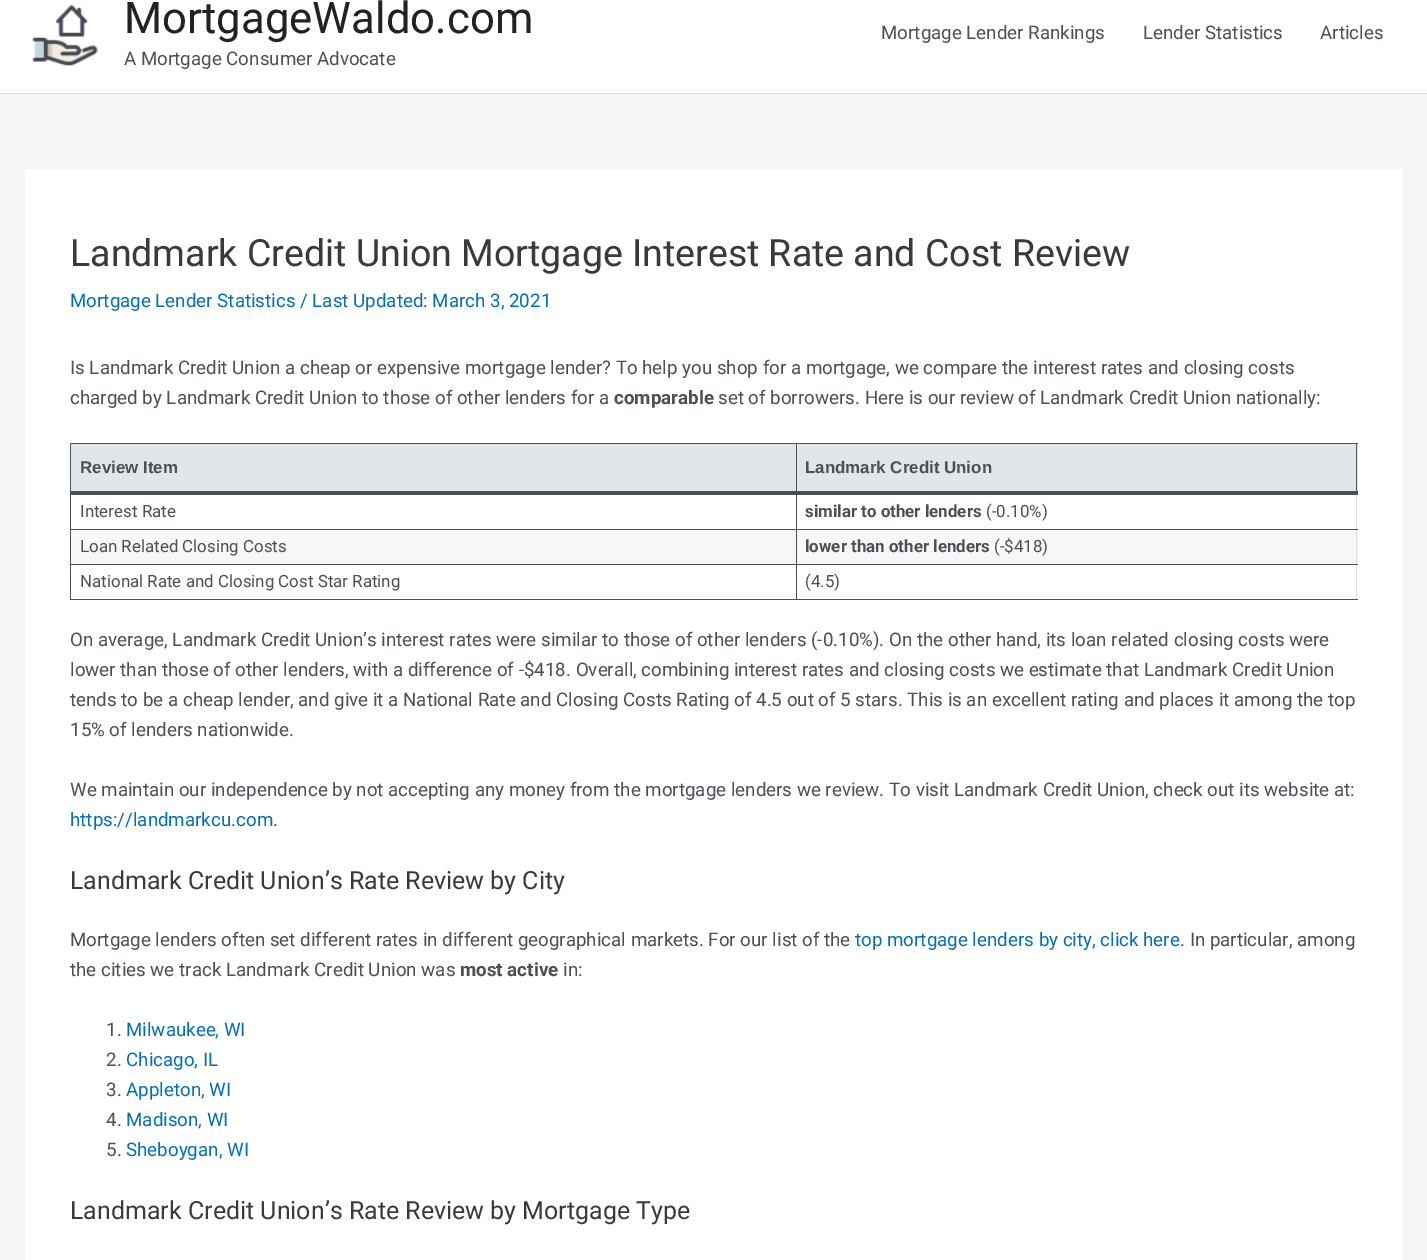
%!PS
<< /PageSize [1427 1260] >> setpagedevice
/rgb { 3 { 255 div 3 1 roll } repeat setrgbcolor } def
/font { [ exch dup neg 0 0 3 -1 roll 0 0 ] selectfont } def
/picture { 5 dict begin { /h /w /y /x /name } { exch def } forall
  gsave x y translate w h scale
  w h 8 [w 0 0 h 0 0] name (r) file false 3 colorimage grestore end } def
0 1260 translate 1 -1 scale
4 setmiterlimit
245 245 245 rgb
0 0 1427 1260 rectfill
255 255 255 rgb
0 0 1427 93 rectfill
221 221 221 rgb
0 93 1427 1 rectfill
(img/1.rgb) 32 5 66 61 picture
[
  [25 169 1378 1091 255 255 255]
  [71 530 1287 34 247 247 247]
  [1356 495 1 105 223 223 223]
  [796 443 562 1 74 84 88]
  [71 444 1287 47 225 230 233]
  [796 529 562 1 75 79 88]
  [796 564 562 1 75 79 88]
  [796 599 562 1 75 79 88]
  [796 564 1 36 75 79 88]
  [70 564 728 1 75 79 88]
  [796 529 1 36 75 79 88]
  [70 529 728 1 75 79 88]
  [796 493 1 37 75 79 88]
  [796 443 1 51 74 84 88]
  [70 443 728 1 74 84 88]
  [70 599 728 1 75 79 88]
  [70 564 1 36 75 79 88]
  [70 493 1 72 75 79 88]
  [70 443 1 51 74 84 88]
  [1356 443 1 51 74 84 88]
  [70 491 1288 4 75 79 88]
] { aload pop rgb rectfill } forall
/Roboto-Regular 43.75 font
34 34 34 rgb
124 33 moveto (MortgageWaldo.com) show
/Roboto-Regular 18.75 font
75 79 88 rgb
[
  [(A Mortgage Consumer Advocate) 124 65]
  [(Mortgage Lender Rankings) 881 39]
  [(Lender Statistics) 1143 39]
  [(Articles) 1320 39]
] { aload pop moveto show } forall
/Roboto-Regular 37.5 font
58 58 58 rgb
70 266 moveto (Landmark Credit Union Mortgage Interest Rate and Cost Review) show
/Roboto-Regular 18.75 font
1 112 185 rgb
70 307 moveto (Mortgage Lender Statistics / Last Updated: March 3, 2021) show
75 79 88 rgb
70 374 moveto (Is Landmark Credit Union a cheap or expensive mortgage lender? To help you shop for a mortgage, we compare the interest rates and closing costs) show
70 404 moveto (charged by Landmark Credit Union to those of other lenders for a) show
/Roboto-Bold 18.75 font
614 404 moveto (comparable) show
/Roboto-Regular 18.75 font
718 404 moveto (set of borrowers. Here is our review of Landmark Credit Union nationally:) show
/LiberationSans-Bold 16.9 font
80 473 moveto (Review Item) show
805 473 moveto (Landmark Credit Union) show
/Roboto-Regular 16.9 font
80 517 moveto (Interest Rate) show
/Roboto-Bold 16.9 font
805 517 moveto (similar to other lenders) show
/Roboto-Regular 16.9 font
986 517 moveto (\(-0.10%\)) show
80 552 moveto (Loan Related Closing Costs) show
/Roboto-Bold 16.9 font
805 552 moveto (lower than other lenders) show
/Roboto-Regular 16.9 font
[
  [(\(-$418\)) 994 552]
  [(National Rate and Closing Cost Star Rating) 80 587]
  [(\(4.5\)) 805 587]
] { aload pop moveto show } forall
/Roboto-Regular 18.75 font
[
  [(On average, Landmark Credit Union’s interest rates were similar to those of other lenders \(-0.10%\). On the other hand, its loan related closing costs were) 70 646]
  [(lower than those of other lenders, with a difference of -$418. Overall, combining interest rates and closing costs we estimate that Landmark Credit Union) 70 676]
  [(tends to be a cheap lender, and give it a National Rate and Closing Costs Rating of 4.5 out of 5 stars. This is an excellent rating and places it among the top) 70 706]
  [(15% of lenders nationwide.) 70 736]
  [(We maintain our independence by not accepting any money from the mortgage lenders we review. To visit Landmark Credit Union, check out its website at:) 70 796]
] { aload pop moveto show } forall
1 112 185 rgb
70 826 moveto (https://landmarkcu.com) show
75 79 88 rgb
273 826 moveto (.) show
/Roboto-Regular 25 font
58 58 58 rgb
70 889 moveto (Landmark Credit Union’s Rate Review by City) show
/Roboto-Regular 18.75 font
75 79 88 rgb
70 946 moveto (Mortgage lenders often set different rates in different geographical markets. For our list of the) show
1 112 185 rgb
855 946 moveto (top mortgage lenders by city, click here) show
75 79 88 rgb
1180 946 moveto (. In particular, among) show
70 976 moveto (the cities we track Landmark Credit Union was) show
/Roboto-Bold 18.75 font
460 976 moveto (most active) show
/Roboto-Regular 18.75 font
563 976 moveto (in:) show
106 1036 moveto (1.) show
1 112 185 rgb
126 1036 moveto (Milwaukee, WI) show
75 79 88 rgb
106 1066 moveto (2.) show
1 112 185 rgb
126 1066 moveto (Chicago, IL) show
75 79 88 rgb
106 1096 moveto (3.) show
1 112 185 rgb
126 1096 moveto (Appleton, WI) show
75 79 88 rgb
106 1126 moveto (4.) show
1 112 185 rgb
126 1126 moveto (Madison, WI) show
75 79 88 rgb
106 1156 moveto (5.) show
1 112 185 rgb
126 1156 moveto (Sheboygan, WI) show
/Roboto-Regular 25 font
58 58 58 rgb
70 1219 moveto (Landmark Credit Union’s Rate Review by Mortgage Type) show
showpage
